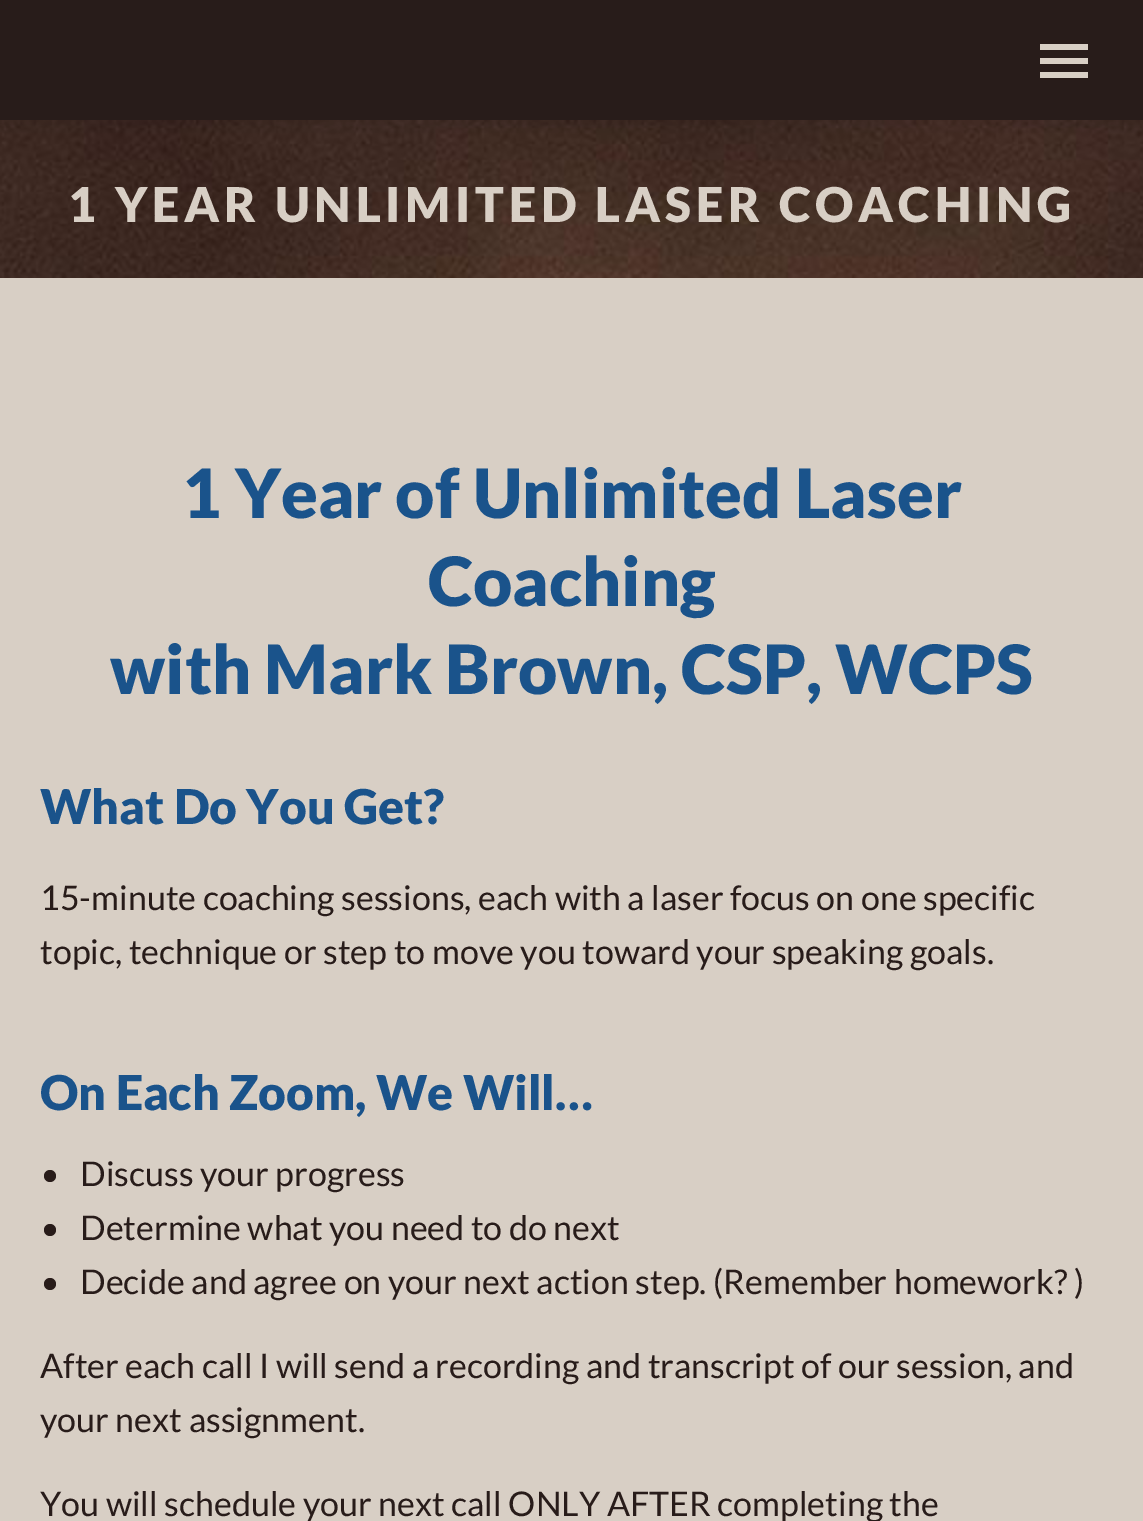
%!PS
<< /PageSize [1143 1521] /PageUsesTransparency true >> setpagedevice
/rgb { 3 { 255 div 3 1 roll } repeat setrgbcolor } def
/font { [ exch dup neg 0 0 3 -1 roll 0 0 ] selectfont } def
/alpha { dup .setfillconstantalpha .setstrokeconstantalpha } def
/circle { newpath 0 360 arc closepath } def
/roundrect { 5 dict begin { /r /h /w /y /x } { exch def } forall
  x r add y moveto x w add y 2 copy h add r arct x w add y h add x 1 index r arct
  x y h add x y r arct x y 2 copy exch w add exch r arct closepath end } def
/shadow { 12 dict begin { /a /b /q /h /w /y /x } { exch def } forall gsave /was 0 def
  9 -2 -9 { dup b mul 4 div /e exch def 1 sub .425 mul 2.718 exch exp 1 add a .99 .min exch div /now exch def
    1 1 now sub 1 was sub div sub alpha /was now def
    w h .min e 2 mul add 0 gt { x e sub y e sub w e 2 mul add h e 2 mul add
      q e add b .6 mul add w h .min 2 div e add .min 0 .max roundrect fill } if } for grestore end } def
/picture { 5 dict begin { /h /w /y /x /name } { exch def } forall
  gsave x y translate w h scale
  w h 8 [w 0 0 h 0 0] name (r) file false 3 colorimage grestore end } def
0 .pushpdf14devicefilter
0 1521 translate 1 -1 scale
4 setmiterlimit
216 207 197 rgb
0 0 1143 1521 rectfill
(img/1.rgb) 0 120 1143 158 picture
0 0 0 rgb
-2 -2 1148 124 0 15 0.07 shadow
[
  [0 0 1143 120 40 28 26]
  [1040 44 48 6 216 207 197]
  [1040 58 48 6 216 207 197]
  [1040 72 48 6 216 207 197]
] { aload pop rgb rectfill } forall
40 28 26 rgb
50 1176 6 circle fill
50 1230 6 circle fill
50 1284 6 circle fill
/Lato-Black 48 font
216 207 197 rgb
68 222 moveto 4.8 0 (1 YEAR UNLIMITED LASER COACHING) ashow
/Lato-Black 68 font
26 83 139 rgb
[
  [(1 Year of Unlimited Laser) 182 518]
  [(Coaching) 428 606]
  [(with Mark Brown, CSP, WCPS) 110 694]
] { aload pop moveto show } forall
/Lato-Black 48 font
40 824 moveto (What Do You Get?) show
/Lato-Regular 34 font
40 28 26 rgb
40 910 moveto (15-minute coaching sessions, each with a laser focus on one specific) show
40 964 moveto (topic, technique or step to move you toward your speaking goals.) show
/Lato-Black 48 font
26 83 139 rgb
40 1110 moveto (On Each Zoom, We Will…) show
/Lato-Regular 34 font
40 28 26 rgb
[
  [(Discuss your progress) 80 1186]
  [(Determine what you need to do next) 80 1240]
  [(Decide and agree on your next action step. \(Remember homework? \)) 80 1294]
  [(After each call I will send a recording and transcript of our session, and) 40 1378]
  [(your next assignment.) 40 1432]
  [(You will schedule your next call ONLY AFTER completing the) 40 1516]
] { aload pop moveto show } forall
.poppdf14devicefilter showpage
